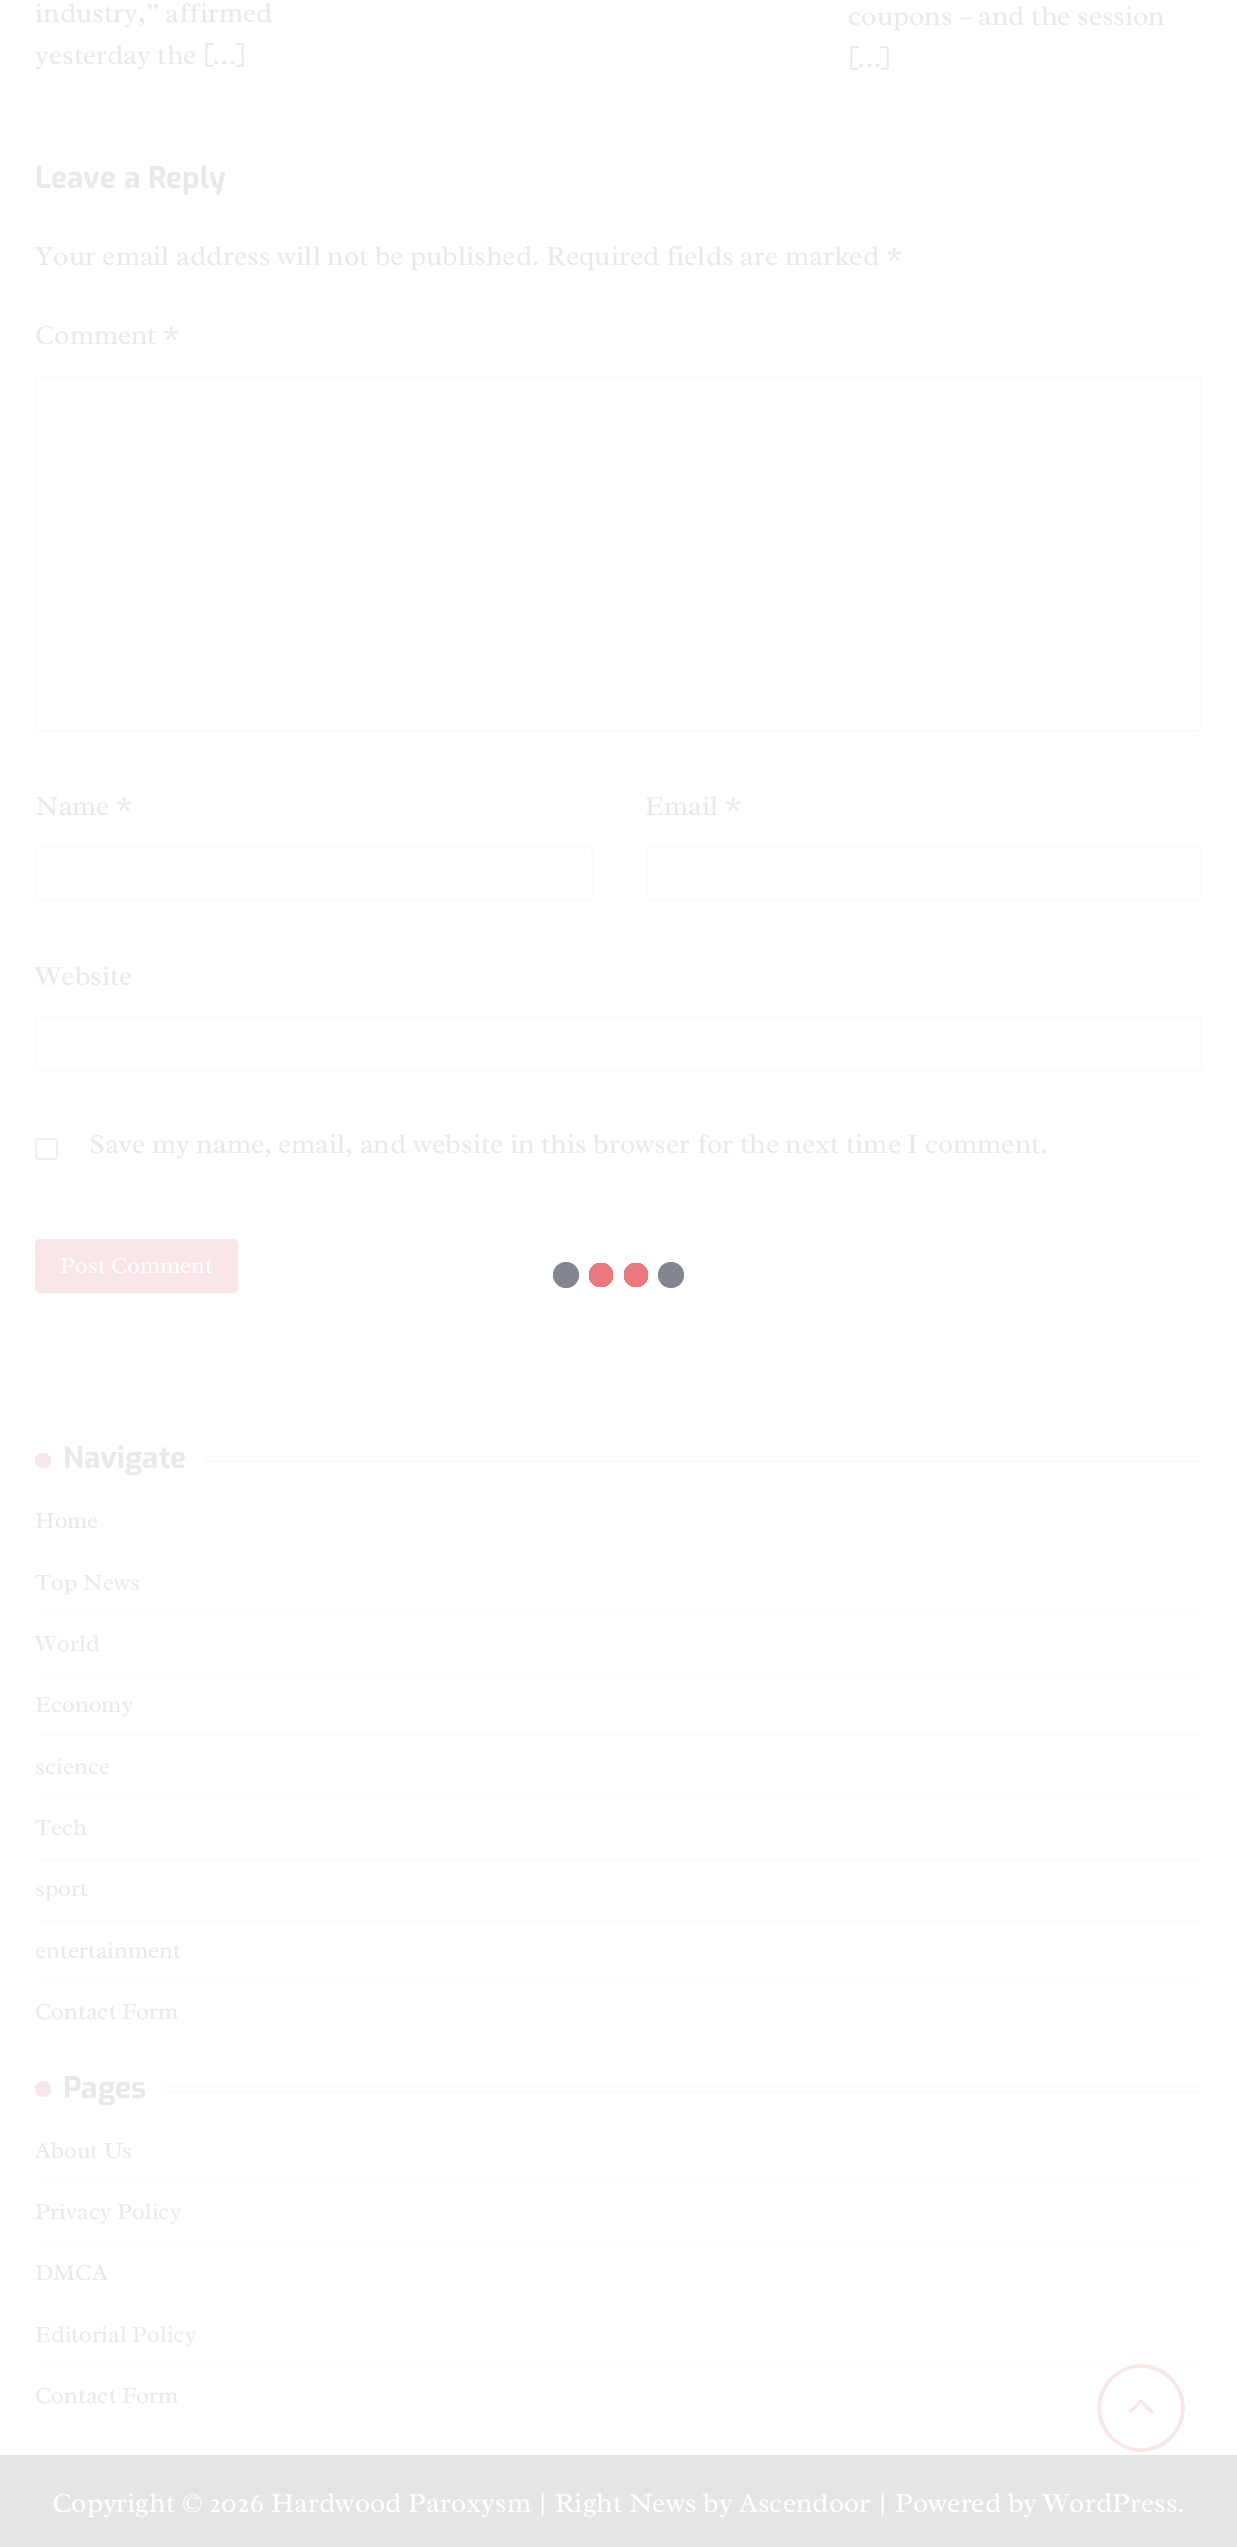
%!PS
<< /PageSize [1237 2547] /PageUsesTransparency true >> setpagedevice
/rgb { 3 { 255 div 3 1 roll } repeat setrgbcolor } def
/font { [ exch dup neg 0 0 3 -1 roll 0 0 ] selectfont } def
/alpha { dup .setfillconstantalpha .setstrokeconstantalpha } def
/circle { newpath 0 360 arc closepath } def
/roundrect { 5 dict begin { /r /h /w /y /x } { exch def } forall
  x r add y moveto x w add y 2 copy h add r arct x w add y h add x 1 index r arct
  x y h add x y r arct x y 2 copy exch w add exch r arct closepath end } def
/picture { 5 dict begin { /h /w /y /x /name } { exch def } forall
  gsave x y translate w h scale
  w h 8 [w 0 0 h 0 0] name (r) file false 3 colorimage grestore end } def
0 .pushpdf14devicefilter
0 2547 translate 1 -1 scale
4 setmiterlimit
255 255 255 rgb
0 0 1237 2547 rectfill
0.3 alpha
243 243 243 rgb
2 setlinewidth
36 376 1165 355 4 roundrect stroke
36 846 556 54 4 roundrect stroke
647 846 554 54 4 roundrect stroke
36 1016 1165 54 4 roundrect stroke
1 alpha
239 239 239 rgb
36 1139 21 20 3 roundrect stroke
251 230 231 rgb
36 1240 201 52 4 roundrect gsave fill grestore
stroke
35 1453 16 15 7.5 roundrect fill
[
  [203 1456 999 2 251 251 251]
  [203 1461 999 2 251 251 251]
  [35 1551 1167 2 252 252 252]
  [35 1612 1167 2 252 252 252]
  [35 1673 1167 2 252 252 252]
  [35 1734 1167 2 252 252 252]
  [35 1797 1167 2 252 252 252]
  [35 1859 1167 2 252 252 252]
  [35 1920 1167 2 252 252 252]
  [35 1981 1167 2 252 252 252]
] { aload pop rgb rectfill } forall
251 230 231 rgb
43 2089 8 circle fill
[
  [163 2086 1039 2 251 251 251]
  [163 2091 1039 2 251 251 251]
  [35 2181 1167 2 252 252 252]
  [35 2242 1167 2 252 252 252]
  [35 2303 1167 2 252 252 252]
  [35 2364 1167 2 252 252 252]
] { aload pop rgb rectfill } forall
gsave 623 1262 moveto 649 1262 lineto 649 1288 lineto 623 1288 lineto closepath clip newpath 636 1275 translate 13 13 scale
<< /ShadingType 3 /ColorSpace /DeviceRGB /Coords [0 0 0 0 0 1] /Extend [true true] /Function << /FunctionType 3 /Domain [0 1] /Functions [<< /FunctionType 2 /Domain [0 1] /C0 [0.918 0.471 0.494] /C1 [0.918 0.471 0.494] /N 1 >> << /FunctionType 2 /Domain [0 1] /C0 [0.918 0.471 0.494] /C1 [1 1 1] /N 1 >>] /Bounds [0.95] /Encode [0 1 0 1] >> >> shfill grestore
gsave 588 1262 moveto 614 1262 lineto 614 1288 lineto 588 1288 lineto closepath clip newpath 601 1275 translate 13 13 scale
<< /ShadingType 3 /ColorSpace /DeviceRGB /Coords [0 0 0 0 0 1] /Extend [true true] /Function << /FunctionType 3 /Domain [0 1] /Functions [<< /FunctionType 2 /Domain [0 1] /C0 [0.918 0.471 0.494] /C1 [0.918 0.471 0.494] /N 1 >> << /FunctionType 2 /Domain [0 1] /C0 [0.918 0.471 0.494] /C1 [1 1 1] /N 1 >>] /Bounds [0.95] /Encode [0 1 0 1] >> >> shfill grestore
130 134 143 rgb
566 1275 13 circle fill
671 1275 13 circle fill
255 255 255 rgb
1141 2408 44 circle fill
(img/1.rgb) 1128 2399 26 15 picture
251 230 231 rgb
3.4 setlinewidth
1141 2366 moveto 1164 2366 1183 2385 1183 2408 curveto 1183 2431 1164 2450 1141 2450 curveto 1118 2450 1099 2431 1099 2408 curveto 1099 2385 1118 2366 1141 2366 curveto stroke
229 229 229 rgb
0 2455 1237 92 rectfill
/Radley-Regular 28 font
232 233 234 rgb
[
  [(industry,” affirmed) 35 22]
  [(yesterday the […]) 35 64]
  [(coupons – and the session) 848 25]
  [([…]) 848 67]
] { aload pop moveto show } forall
/Exo-Bold 29.75 font
35 188 moveto (Leave a Reply) show
/Radley-Regular 28 font
[
  [(Your email address will not be published. Required fields are marked *) 35 265]
  [(Comment *) 35 344]
  [(Name *) 35 815]
  [(Email *) 645 815]
] { aload pop moveto show } forall
gsave
35 0 1167 1442 rectclip
35 985 moveto (Website) show
grestore
89 1153 moveto (Save my name, email, and website in this browser for the next time I comment.) show
/Radley-Regular 23.5 font
255 255 255 rgb
60 1273 moveto (Post Comment) show
/Exo-Bold 29.75 font
232 233 234 rgb
63 1468 moveto (Navigate) show
/Radley-Regular 23.5 font
[
  [(Home) 35 1528]
  [(Top News) 35 1590]
  [(World) 35 1651]
  [(Economy) 35 1712]
  [(science) 35 1774]
  [(Tech) 35 1835]
  [(sport) 35 1896]
  [(entertainment) 35 1958]
  [(Contact Form) 35 2019]
] { aload pop moveto show } forall
/Exo-Bold 29.75 font
63 2098 moveto (Pages) show
/Radley-Regular 23.5 font
[
  [(About Us) 35 2158]
  [(Privacy Policy) 35 2219]
  [(DMCA) 35 2280]
  [(Editorial Policy) 35 2342]
  [(Contact Form) 35 2403]
] { aload pop moveto show } forall
/Radley-Regular 28 font
255 255 255 rgb
[
  [(Copyright © 2026) 52 2512]
  [(Hardwood Paroxysm) 271 2512]
  [(| Right News by) 537 2512]
  [(Ascendoor) 739 2512]
  [(| Powered by) 877 2512]
  [(WordPress) 1043 2512]
  [(.) 1177 2512]
] { aload pop moveto show } forall
.poppdf14devicefilter showpage
